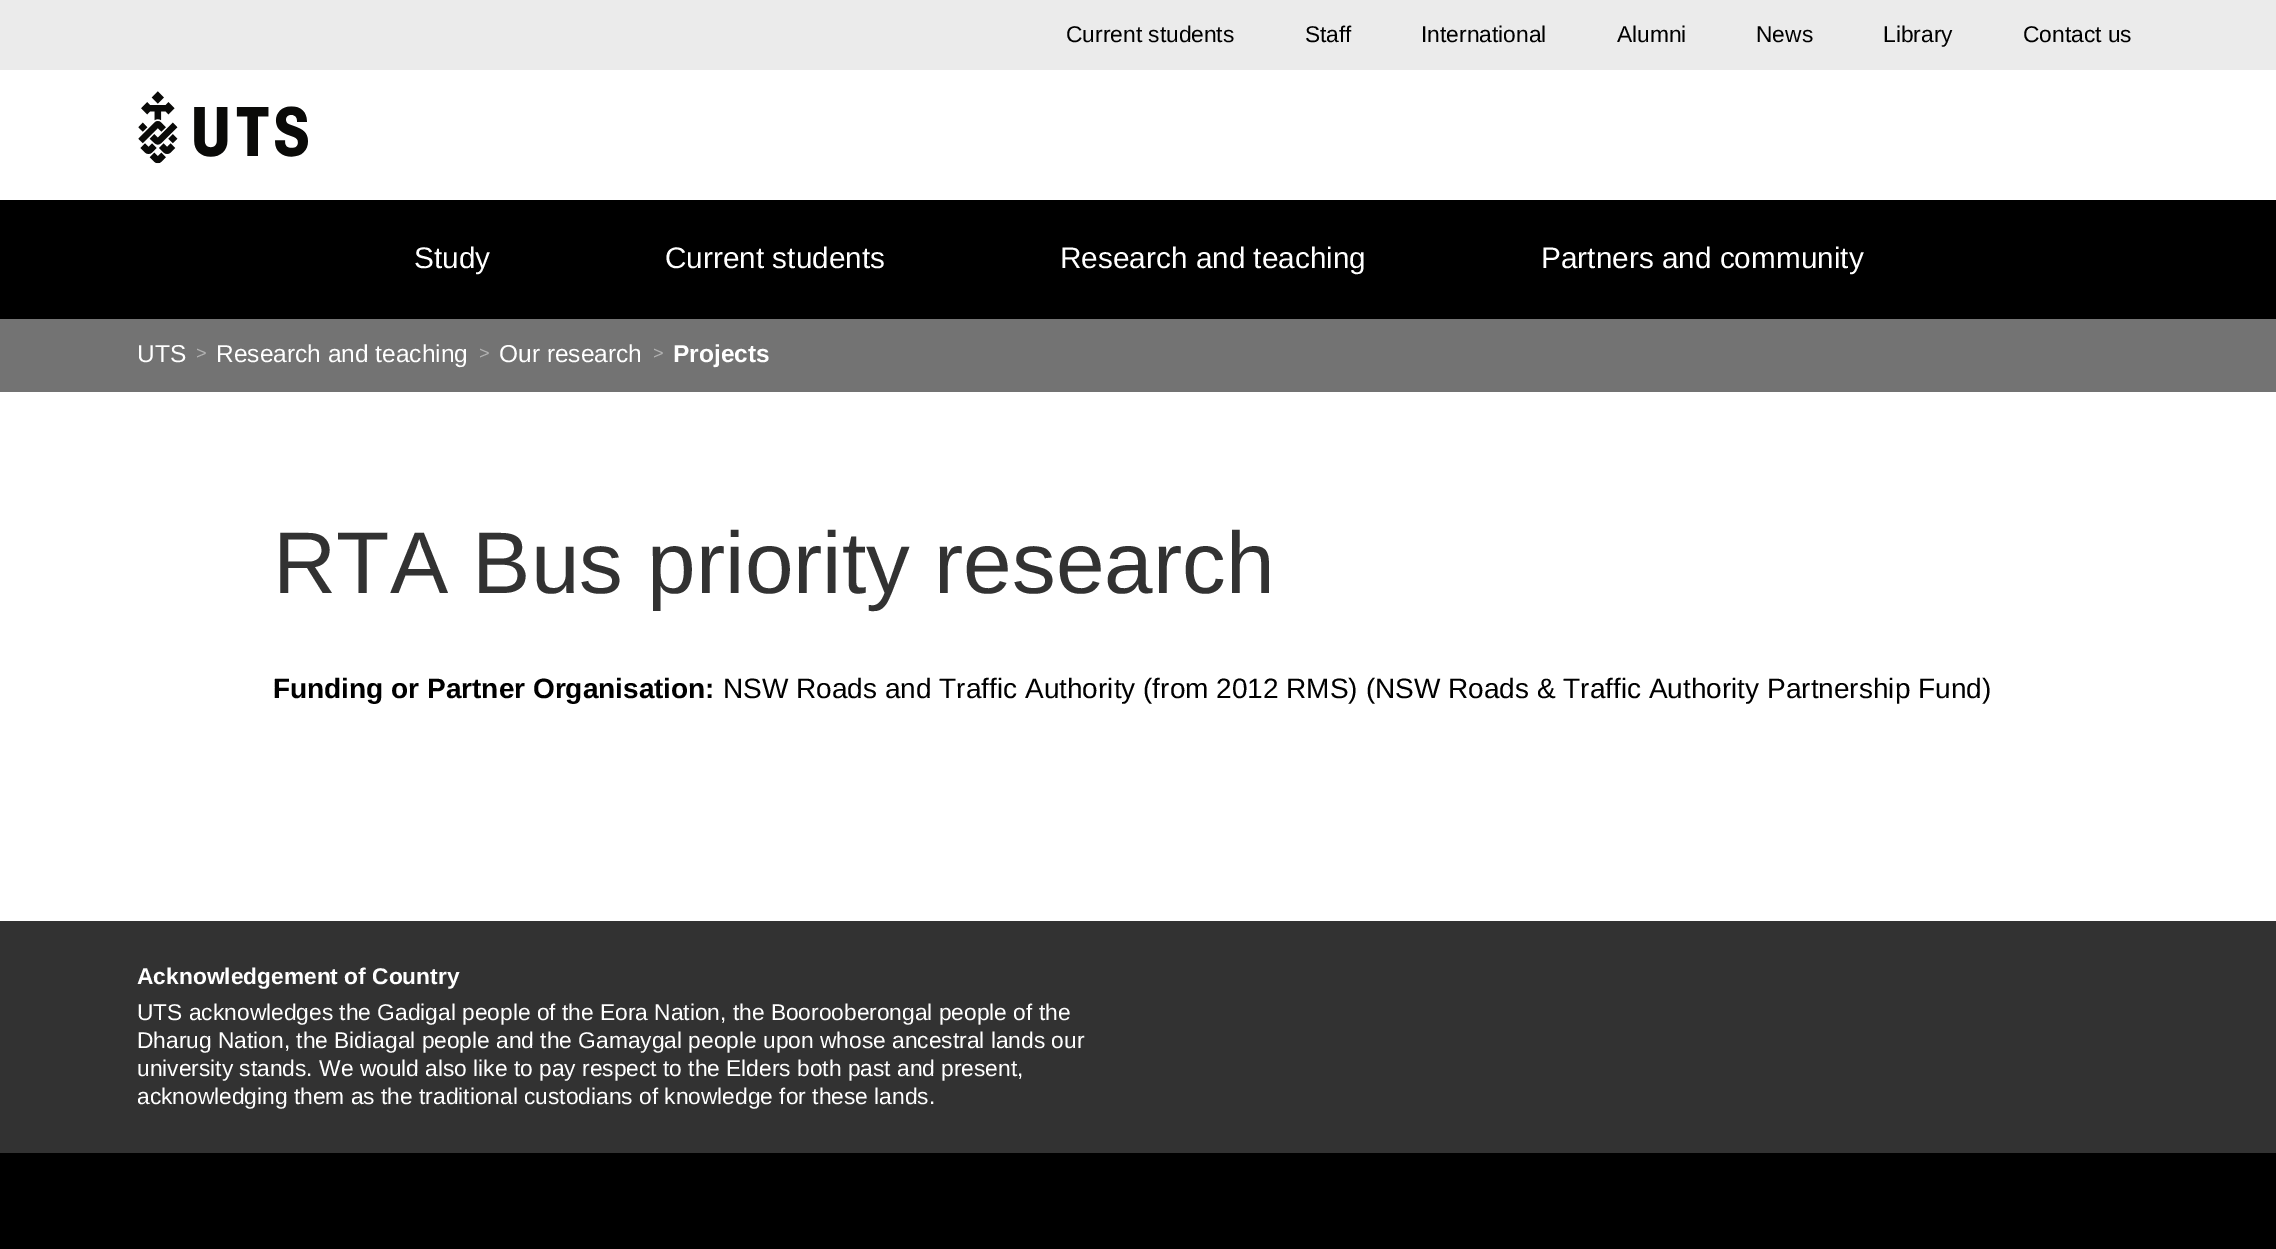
%!PS
<< /PageSize [2276 1249] >> setpagedevice
/rgb { 3 { 255 div 3 1 roll } repeat setrgbcolor } def
/font { [ exch dup neg 0 0 3 -1 roll 0 0 ] selectfont } def
/picture { 5 dict begin { /h /w /y /x /name } { exch def } forall
  gsave x y translate w h scale
  w h 8 [w 0 0 h 0 0] name (r) file false 3 colorimage grestore end } def
0 1249 translate 1 -1 scale
4 setmiterlimit
255 255 255 rgb
0 0 2276 1249 rectfill
235 235 235 rgb
0 0 2276 70 rectfill
(img/1.rgb) 138 91 170 73 picture
[
  [0 200 2276 119 0 0 0]
  [0 319 2276 73 115 115 115]
  [0 1153 2276 96 0 0 0]
  [0 921 2276 232 50 50 50]
] { aload pop rgb rectfill } forall
/LiberationSans-Regular 22.75 font
0 0 0 rgb
[
  [(Current students) 1066 42]
  [(Staff) 1305 42]
  [(International) 1421 42]
  [(Alumni) 1617 42]
  [(News) 1756 42]
  [(Library) 1883 42]
  [(Contact us) 2023 42]
] { aload pop moveto show } forall
/LiberationSans-Regular 29.75 font
255 255 255 rgb
[
  [(Study) 414 268]
  [(Current students) 665 268]
  [(Research and teaching) 1060 268]
  [(Partners and community) 1541 268]
] { aload pop moveto show } forall
/LiberationSans-Regular 24.5 font
137 362 moveto (UTS) show
/LiberationSans-Regular 18 font
178 178 178 rgb
196 359 moveto (>) show
/LiberationSans-Regular 24.5 font
255 255 255 rgb
216 362 moveto (Research and teaching) show
/LiberationSans-Regular 18 font
178 178 178 rgb
479 359 moveto (>) show
/LiberationSans-Regular 24.5 font
255 255 255 rgb
499 362 moveto (Our research) show
/LiberationSans-Regular 18 font
178 178 178 rgb
653 359 moveto (>) show
/LiberationSans-Bold 24.5 font
255 255 255 rgb
673 362 moveto (Projects) show
/LiberationSans-Regular 87.5 font
50 50 50 rgb
273 593 moveto (RTA Bus priority research) show
/LiberationSans-Bold 28 font
0 0 0 rgb
273 698 moveto (Funding or Partner Organisation:) show
/LiberationSans-Regular 28 font
723 698 moveto (NSW Roads and Traffic Authority \(from 2012 RMS\) \(NSW Roads & Traffic Authority Partnership Fund\)) show
/LiberationSans-Bold 22.75 font
255 255 255 rgb
137 984 moveto (Acknowledgement of Country) show
/LiberationSans-Regular 22.75 font
[
  [(UTS acknowledges the Gadigal people of the Eora Nation, the Boorooberongal people of the) 137 1020]
  [(Dharug Nation, the Bidiagal people and the Gamaygal people upon whose ancestral lands our) 137 1048]
  [(university stands. We would also like to pay respect to the Elders both past and present,) 137 1076]
  [(acknowledging them as the traditional custodians of knowledge for these lands.) 137 1104]
] { aload pop moveto show } forall
showpage
